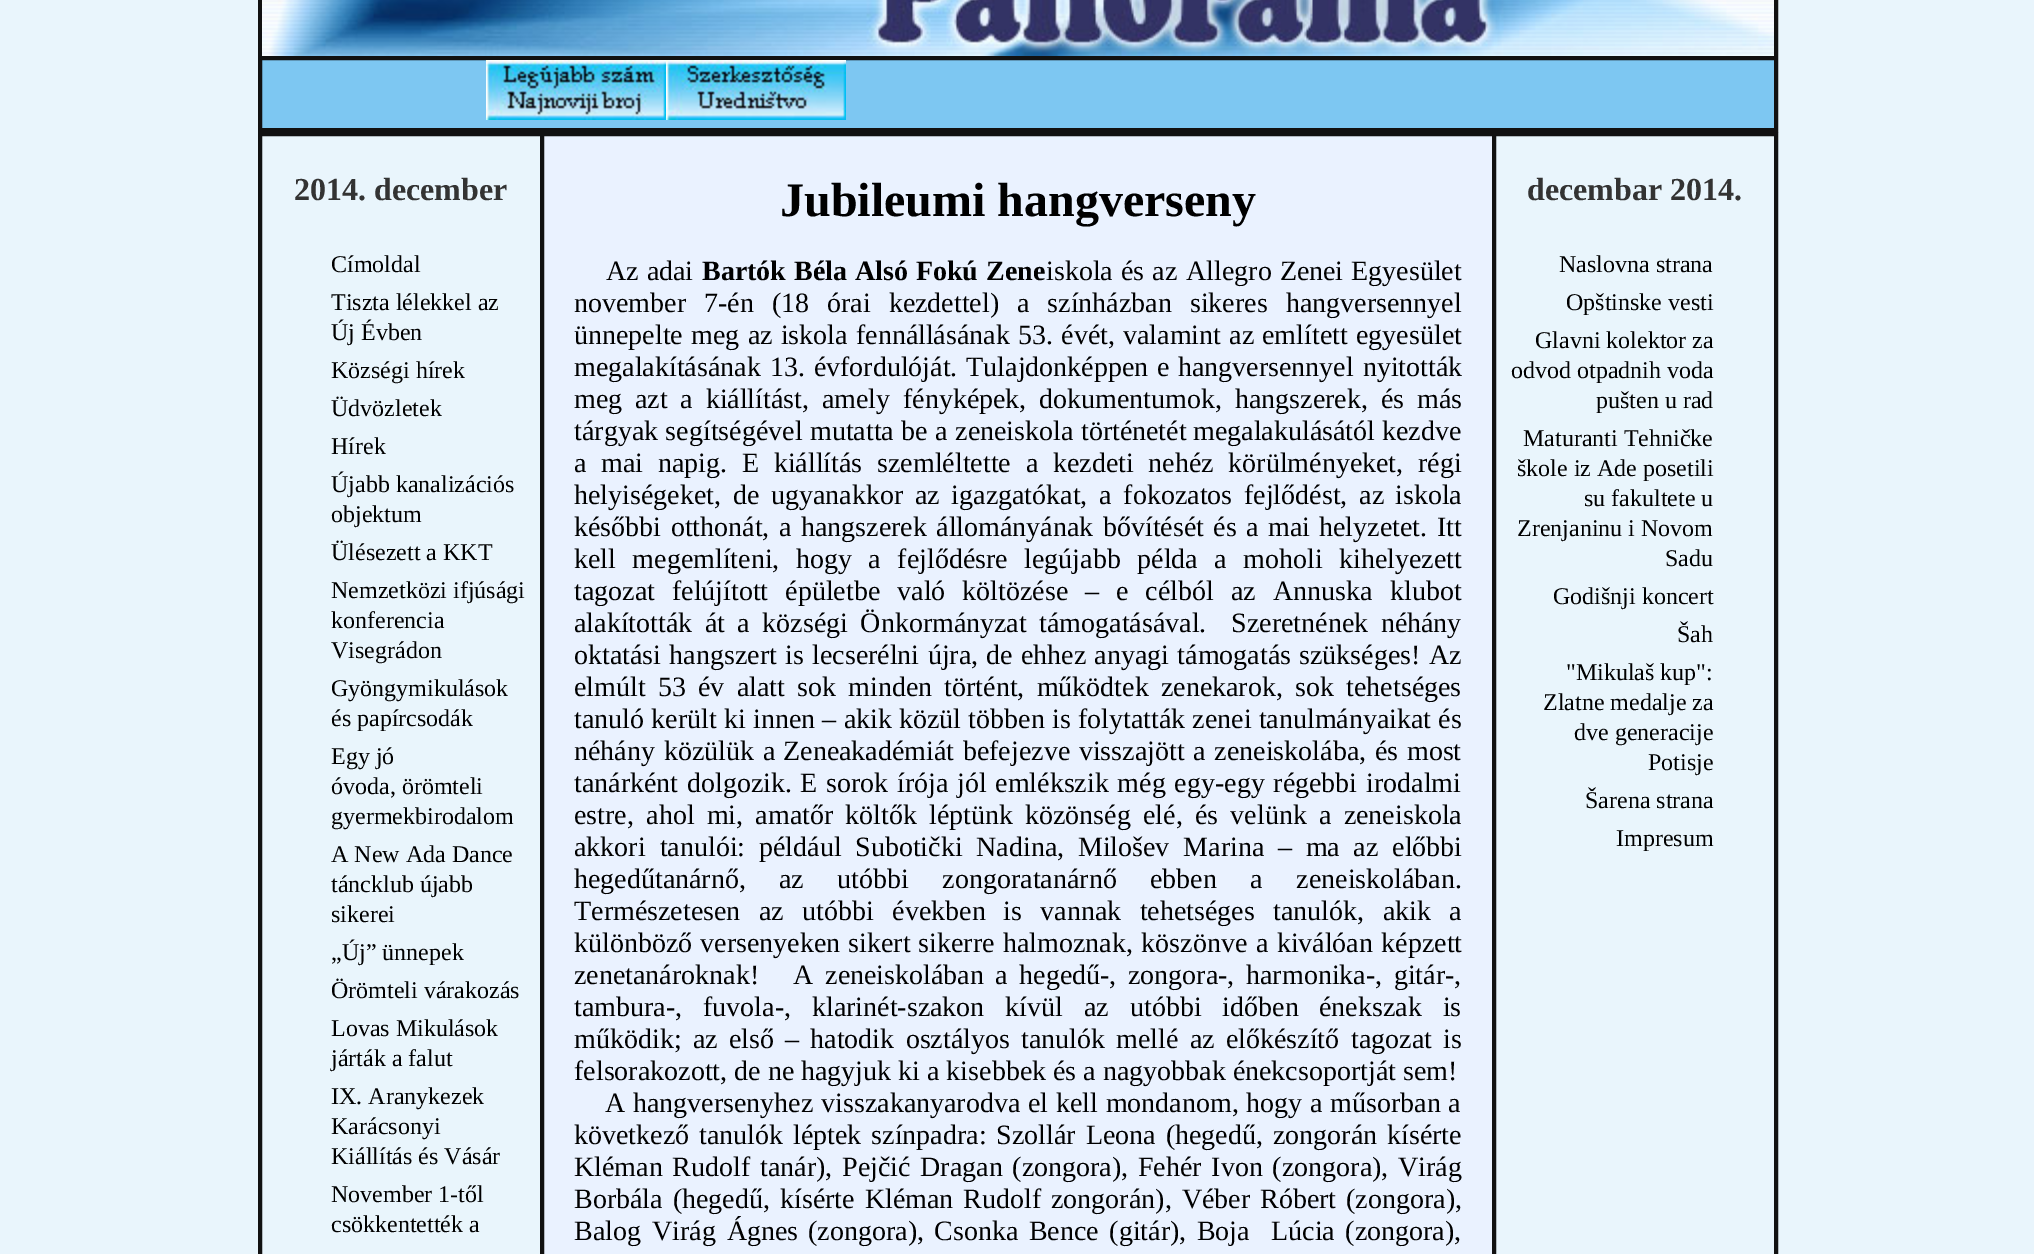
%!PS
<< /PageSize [2034 1254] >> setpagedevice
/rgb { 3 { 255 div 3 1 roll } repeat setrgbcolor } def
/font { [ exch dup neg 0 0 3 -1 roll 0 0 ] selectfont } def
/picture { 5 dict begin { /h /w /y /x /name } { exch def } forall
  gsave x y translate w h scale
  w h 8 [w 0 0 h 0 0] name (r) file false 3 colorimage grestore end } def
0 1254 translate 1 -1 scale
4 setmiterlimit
233 245 252 rgb
0 0 2034 1254 rectfill
17 17 17 rgb
2 setlinewidth
259 -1 1518 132 rectstroke
261 -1 1514 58 rectstroke
(img/1.rgb) 262 0 1512 56 picture
125 199 242 rgb
261 59 moveto 1775 59 lineto 1775 129 lineto 261 129 lineto closepath gsave fill grestore
17 17 17 rgb
stroke
(img/2.rgb) 486 60 180 60 picture
(img/3.rgb) 666 60 180 60 picture
259 133 1518 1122 rectstroke
261 135 280 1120 rectstroke
234 242 255 rgb
543 135 moveto 1493 135 lineto 1493 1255 lineto 543 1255 lineto closepath gsave fill grestore
17 17 17 rgb
stroke
1495 135 280 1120 rectstroke
/LiberationSerif-Bold 32 font
51 51 51 rgb
294 200 moveto (2014. december) show
/LiberationSerif-Regular 24 font
0 0 0 rgb
[
  [(Címoldal) 331 272]
  [(Tiszta lélekkel az) 331 310]
  [(Új Évben) 331 340]
  [(Községi hírek) 331 378]
  [(Üdvözletek) 331 416]
  [(Hírek) 331 454]
  [(Újabb kanalizációs) 331 492]
  [(objektum) 331 522]
  [(Ülésezett a KKT) 331 560]
  [(Nemzetközi ifjúsági) 331 598]
  [(konferencia) 331 628]
  [(Visegrádon) 331 658]
  [(Gyöngymikulások) 331 696]
  [(és papírcsodák) 331 726]
  [(Egy jó) 331 764]
  [(óvoda, örömteli) 331 794]
  [(gyermekbirodalom) 331 824]
  [(A New Ada Dance) 331 862]
  [(táncklub újabb) 331 892]
  [(sikerei) 331 922]
  [(„Új” ünnepek) 331 960]
  [(Örömteli várakozás) 331 998]
  [(Lovas Mikulások) 331 1036]
  [(járták a falut) 331 1066]
  [(IX. Aranykezek) 331 1104]
  [(Karácsonyi) 331 1134]
  [(Kiállítás és Vásár) 331 1164]
  [(November 1-től) 331 1202]
  [(csökkentették a) 331 1232]
] { aload pop moveto show } forall
/LiberationSerif-Bold 48 font
780 216 moveto (Jubileumi hangverseny) show
/LiberationSerif-Regular 28 font
606 280 moveto 1 0 32 (Az adai) widthshow
/LiberationSerif-Bold 28 font
702 280 moveto 1 0 32 (Bartók Béla Alsó Fokú Zene) widthshow
/LiberationSerif-Regular 28 font
1046 280 moveto 1 0 32 (iskola és az) widthshow
1186 280 moveto 1 0 32 (Allegro Zenei Egyesület) widthshow
574 312 moveto 11 0 32 (november 7-én \(18 órai kezdettel\) a színházban sikeres) widthshow
1286 312 moveto (hangversennyel) show
574 344 moveto 1.25 0 32 (ünnepelte meg az iskola fennállásának 53. évét, valamint az) widthshow
1262 344 moveto 1.5 0 32 (említett egyesület) widthshow
574 376 moveto 2 0 32 (megalakításának 13. évfordulóját. Tulajdonképpen e) widthshow
1178 376 moveto 2 0 32 (hangversennyel nyitották) widthshow
574 408 moveto 5.75 0 32 (meg azt a kiállítást, amely fényképek, dokumentumok,) widthshow
1235 408 moveto 5.75 0 32 (hangszerek, és más) widthshow
574 440 moveto 0.5 0 32 (tárgyak segítségével mutatta be a zeneiskola történetét) widthshow
1193 440 moveto (megalakulásától kezdve) show
574 472 moveto 7.75 0 32 (a mai napig. E kiállítás szemléltette a kezdeti nehéz körülményeket,) widthshow
1418 472 moveto (régi) show
574 504 moveto 4.75 0 32 (helyiségeket, de ugyanakkor az igazgatókat, a fokozatos fejlődést, az) widthshow
1395 504 moveto (iskola) show
574 536 moveto 2.5 0 32 (későbbi otthonát, a hangszerek állományának bővítését és a mai) widthshow
1319 536 moveto 2.5 0 32 (helyzetet. Itt) widthshow
574 568 moveto 9.5 0 32 (kell megemlíteni, hogy a fejlődésre legújabb példa a moholi) widthshow
1339 568 moveto (kihelyezett) show
574 600 moveto 10 0 32 (tagozat felújított épületbe való költözése – e célból az Annuska) widthshow
1390 600 moveto (klubot) show
574 632 moveto 5.5 0 32 (alakították át a községi Önkormányzat támogatásával.  Szeretnének néhány) widthshow
574 664 moveto 1.25 0 32 (oktatási hangszert is) widthshow
812 664 moveto 1.25 0 32 (lecserélni újra, de ehhez anyagi támogatás szükséges! Az) widthshow
574 696 moveto 5.25 0 32 (elmúlt 53 év alatt sok) widthshow
848 696 moveto 5.25 0 32 (minden történt, működtek zenekarok, sok tehetséges) widthshow
574 728 moveto 0.25 0 32 (tanuló került ki innen – akik közül többen is folytatták zenei tanulmányaikat és) widthshow
574 760 moveto 2 0 32 (néhány közülük a) widthshow
783 760 moveto 1.75 0 32 (Zeneakadémiát befejezve visszajött a zeneiskolába, és most) widthshow
574 792 moveto 2 0 32 (tanárként dolgozik.) widthshow
800 792 moveto 1.75 0 32 (E sorok írója jól emlékszik még egy-egy régebbi irodalmi) widthshow
574 824 moveto 5.25 0 32 (estre, ahol mi, amatőr) widthshow
845 824 moveto 5.25 0 32 (költők léptünk közönség elé, és velünk a zeneiskola) widthshow
574 856 moveto 7 0 32 (akkori tanulói: például) widthshow
855 856 moveto 6.75 0 32 (Subotički Nadina, Milošev Marina – ma az előbbi) widthshow
574 888 moveto (hegedűtanárnő,) show
779 888 moveto 26.5 0 32 (az utóbbi zongoratanárnő ebben a zeneiskolában.) widthshow
574 920 moveto 11.5 0 32 (Természetesen az utóbbi években) widthshow
1003 920 moveto 11.5 0 32 (is vannak tehetséges tanulók, akik a) widthshow
574 952 moveto 1 0 32 (különböző versenyeken sikert sikerre) widthshow
1003 952 moveto 1.5 0 32 (halmoznak, köszönve a kiválóan képzett) widthshow
574 984 moveto 4.5 0 32 (zenetanároknak!   A zeneiskolában a hegedű-, zongora-,) widthshow
1246 984 moveto 4.5 0 32 (harmonika-, gitár-,) widthshow
574 1016 moveto 14 0 32 (tambura-, fuvola-, klarinét-szakon kívül az utóbbi időben) widthshow
1319 1016 moveto 14 0 32 (énekszak is) widthshow
574 1048 moveto 4.25 0 32 (működik; az első – hatodik osztályos tanulók mellé az előkészítő) widthshow
1351 1048 moveto 4.25 0 32 (tagozat is) widthshow
574 1080 moveto (felsorakozott, de ne hagyjuk ki a kisebbek és a nagyobbak énekcsoportját sem!) show
605 1112 moveto (A) show
633 1112 moveto 0.75 0 32 (hangversenyhez visszakanyarodva el kell mondanom, hogy a műsorban a) widthshow
574 1144 moveto (következő) show
699 1144 moveto 3 0 32 (tanulók léptek színpadra: Szollár Leona \(hegedű, zongorán kísérte) widthshow
574 1176 moveto 2.75 0 32 (Kléman Rudolf) widthshow
760 1176 moveto 2.75 0 32 (tanár\), Pejčić Dragan \(zongora\), Fehér Ivon \(zongora\), Virág) widthshow
574 1208 moveto 3 0 32 (Borbála \(hegedű,) widthshow
780 1208 moveto 3 0 32 (kísérte Kléman Rudolf zongorán\), Véber Róbert \(zongora\),) widthshow
574 1240 moveto 4 0 32 (Balog Virág Ágnes) widthshow
808 1240 moveto 3.5 0 32 (\(zongora\), Csonka Bence \(gitár\), Boja) widthshow
1271 1240 moveto 3.5 0 32 (Lúcia \(zongora\),) widthshow
/LiberationSerif-Bold 32 font
51 51 51 rgb
1527 200 moveto (decembar 2014.) show
/LiberationSerif-Regular 24 font
0 0 0 rgb
[
  [(Naslovna strana) 1559 272]
  [(Opštinske vesti) 1566 310]
  [(Glavni kolektor za) 1535 348]
  [(odvod otpadnih voda) 1511 378]
  [(pušten u rad) 1596 408]
  [(Maturanti Tehničke) 1523 446]
  [(škole iz Ade posetili) 1517 476]
  [(su fakultete u) 1584 506]
  [(Zrenjaninu i Novom) 1517 536]
  [(Sadu) 1665 566]
  [(Godišnji koncert) 1553 604]
  [(Šah) 1677 642]
  [("Mikulaš kup":) 1566 680]
  [(Zlatne medalje za) 1543 710]
  [(dve generacije) 1574 740]
  [(Potisje) 1648 770]
  [(Šarena strana) 1585 808]
  [(Impresum) 1616 846]
] { aload pop moveto show } forall
showpage
